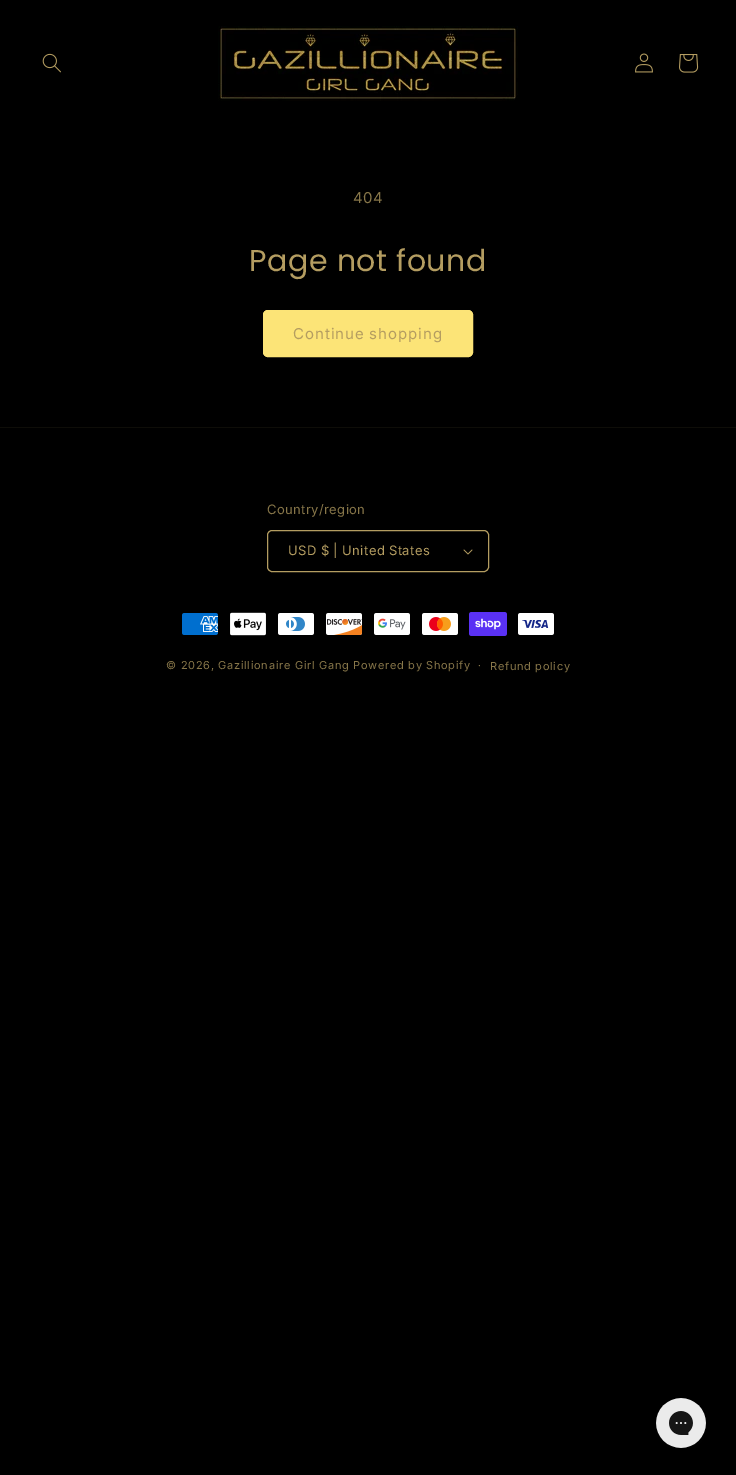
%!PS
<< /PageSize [736 1475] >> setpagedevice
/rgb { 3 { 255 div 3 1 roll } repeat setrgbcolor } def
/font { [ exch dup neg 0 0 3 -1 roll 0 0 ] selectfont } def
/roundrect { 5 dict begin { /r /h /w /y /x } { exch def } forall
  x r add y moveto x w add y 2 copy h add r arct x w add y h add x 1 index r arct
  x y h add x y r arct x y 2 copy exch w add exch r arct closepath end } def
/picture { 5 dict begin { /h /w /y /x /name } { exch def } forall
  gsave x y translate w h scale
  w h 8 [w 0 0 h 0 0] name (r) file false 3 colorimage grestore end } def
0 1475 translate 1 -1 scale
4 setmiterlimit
0 0 0 rgb
0 0 736 1475 rectfill
(img/1.rgb) 42 53 19 20 picture
(img/2.rgb) 218 26 300 75 picture
(img/3.rgb) 635 53 18 20 picture
(img/4.rgb) 679 54 20 19 picture
252 228 119 rgb
263 310 210 47 5 roundrect fill
263.5 310.5 209 46 4.5 roundrect stroke
14 13 8 rgb
0 427 736 1 rectfill
(img/5.rgb) 463 549 10 6 picture
180 157 97 rgb
267.5 530.5 221 41 4.5 roundrect stroke
(img/6.rgb) 182 613 36 22 picture
(img/7.rgb) 230 612 36 24 picture
(img/8.rgb) 278 613 36 22 picture
(img/9.rgb) 326 613 37 22 picture
(img/10.rgb) 374 613 36 22 picture
(img/11.rgb) 422 613 36 22 picture
(img/12.rgb) 469 612 38 24 picture
(img/13.rgb) 518 613 36 22 picture
(img/14.rgb) 656 1398 50 50 picture
/Inter-Regular 15 font
135 118 73 rgb
353 203 moveto 0.6 0 (404) ashow
/Poppins-Regular 30 font
180 157 97 rgb
249 271 moveto 0.6 0 (Page not found) ashow
/Inter-Regular 15 font
293 339 moveto -1 0 32 1 0 (Continue shopping) awidthshow
/Inter-Regular 13 font
135 118 73 rgb
267 514 moveto 0.4 0 (Country/region) ashow
180 157 97 rgb
288 555 moveto 0.4 0 (USD $ | United States) ashow
/Inter-Regular 11 font
135 118 73 rgb
166 669 moveto 0.7 0 (© 2026, Gazillionaire Girl Gang Powered by Shopify) ashow
/Inter-Regular 10 font
478 669 moveto 0.7 0 (·) ashow
/Inter-Regular 11 font
490 670 moveto 0.7 0 (Refund policy) ashow
showpage
